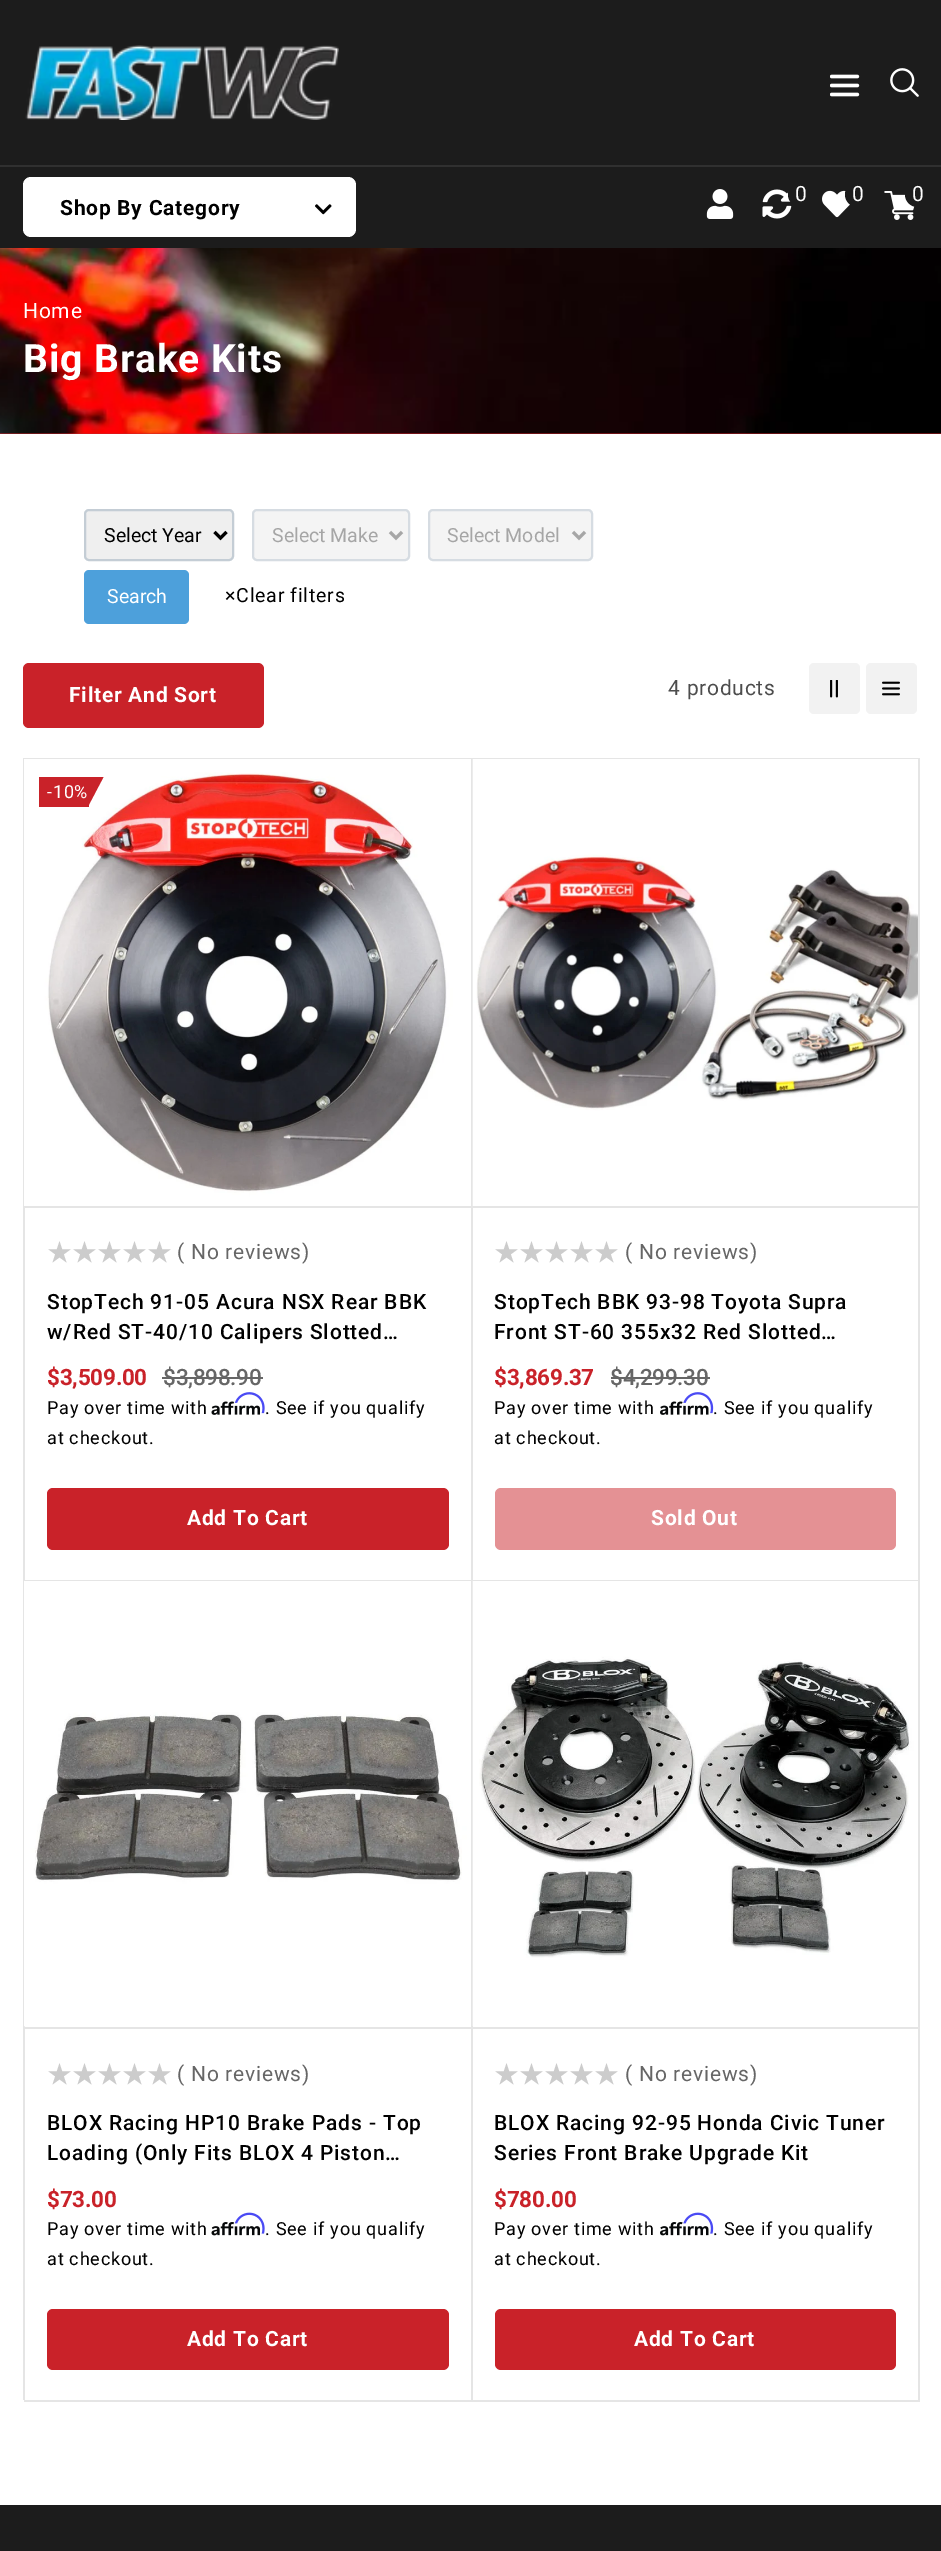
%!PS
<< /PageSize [941 2551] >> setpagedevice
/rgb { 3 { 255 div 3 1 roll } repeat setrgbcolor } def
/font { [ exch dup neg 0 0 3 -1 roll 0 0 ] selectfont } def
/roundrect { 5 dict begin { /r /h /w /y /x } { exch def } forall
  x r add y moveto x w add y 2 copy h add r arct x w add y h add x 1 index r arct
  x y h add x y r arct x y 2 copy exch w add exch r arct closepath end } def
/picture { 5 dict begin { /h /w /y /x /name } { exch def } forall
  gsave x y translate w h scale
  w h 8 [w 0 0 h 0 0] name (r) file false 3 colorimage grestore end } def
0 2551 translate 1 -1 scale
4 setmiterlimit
255 255 255 rgb
0 0 941 2551 rectfill
28 28 28 rgb
0 0 941 165 rectfill
(img/1.rgb) 25 45 314 75 picture
(img/2.rgb) 830 74 30 23 picture
(img/3.rgb) 890 68 29 29 picture
0 167 941 81 rectfill
48 48 48 rgb
0 165 941 2 rectfill
(img/4.rgb) 706 189 28 30 picture
(img/5.rgb) 762 189 30 30 picture
28 28 28 rgb
788 182 27 25 12.5 roundrect fill
(img/6.rgb) 822 190 29 28 picture
845 182 27 25 12.5 roundrect fill
(img/7.rgb) 884 191 31 29 picture
905 182 27 25 12.5 roundrect fill
255 255 255 rgb
23 177 333 60 8 roundrect fill
(img/8.rgb) 315 204 17 11 picture
201 34 41 rgb
0 433 941 1 rectfill
(img/9.rgb) 0 248 941 186 picture
239 239 239 rgb
85 510 148 50 4 roundrect gsave fill grestore
196 205 213 rgb
2 setlinewidth
stroke
0 0 0 rgb
3 setlinewidth
214.5 532 moveto 220.5 538 lineto 226.5 532 lineto stroke
244 244 244 rgb
253 510 156 50 4 roundrect gsave fill grestore
214 220 226 rgb
2 setlinewidth
stroke
166 166 166 rgb
3 setlinewidth
390 532 moveto 396 538 lineto 402 532 lineto stroke
244 244 244 rgb
429 510 163 50 4 roundrect gsave fill grestore
214 220 226 rgb
2 setlinewidth
stroke
166 166 166 rgb
3 setlinewidth
573 532 moveto 579 538 lineto 585 532 lineto stroke
77 160 219 rgb
84 570 105 54 5 roundrect fill
201 34 41 rgb
23 663 241 65 6 roundrect fill
242 242 242 rgb
809 663 51 51 5 roundrect fill
(img/10.rgb) 830 680 8 18 picture
866 663 51 51 5 roundrect fill
(img/11.rgb) 882 681 18 15 picture
[
  [23 758 2 1642 229 229 229]
  [24 758 896 1 229 229 229]
  [471 758 2 823 229 229 229]
  [24 1580 449 1 229 229 229]
] { aload pop rgb rectfill } forall
(img/12.rgb) 24 759 447 447 picture
201 34 41 rgb
39 777 50 30 rectfill
88.5 805.5 moveto 88.5 777 lineto 103.5 777 lineto closepath fill
229 229 229 rgb
24 1206 447 2 rectfill
102 102 102 rgb
162 1377 101 2 rectfill
(img/14.rgb) 211 1401 49 14 picture
(img/13.rgb) 234 1392 31 22 picture
201 34 41 rgb
47 1488 402 62 6 roundrect fill
229 229 229 rgb
918 758 2 823 rectfill
473 1580 447 1 rectfill
(img/15.rgb) 472 759 446 447 picture
473 1206 445 2 rectfill
102 102 102 rgb
611 1377 99 2 rectfill
(img/17.rgb) 660 1401 49 14 picture
(img/16.rgb) 683 1392 31 22 picture
228 145 148 rgb
495 1488 401 62 6 roundrect fill
229 229 229 rgb
471 1580 2 822 rectfill
24 2400 449 2 rectfill
(img/18.rgb) 24 1581 447 446 picture
24 2027 447 2 rectfill
(img/20.rgb) 211 2222 49 14 picture
(img/19.rgb) 234 2212 31 22 picture
201 34 41 rgb
47 2309 402 61 6 roundrect fill
229 229 229 rgb
918 1580 2 822 rectfill
473 2400 447 2 rectfill
(img/21.rgb) 472 1581 446 445 picture
473 2027 445 2 rectfill
(img/23.rgb) 660 2222 49 14 picture
(img/22.rgb) 683 2212 31 22 picture
201 34 41 rgb
495 2309 401 61 6 roundrect fill
28 28 28 rgb
0 2505 941 46 rectfill
/Roboto-Regular 21 font
255 255 255 rgb
795 201 moveto 0.75 0 (0) ashow
852 201 moveto 0.75 0 (0) ashow
912 201 moveto 0.75 0 (0) ashow
/Roboto-Bold 21 font
0 0 0 rgb
60 215 moveto 0.75 0 (Shop By Category) ashow
/Roboto-Regular 21 font
255 255 255 rgb
23 318 moveto 0.75 0 (Home) ashow
/Roboto-Bold 39 font
23 372 moveto 0.9 0 (Big Brake Kits) ashow
/Roboto-Regular 19.5 font
0 0 0 rgb
104 542 moveto (Select Year) show
166 166 166 rgb
272 542 moveto (Select Make) show
447 542 moveto (Select Model) show
255 255 255 rgb
107 603 moveto (Search) show
0 0 0 rgb
225 602 moveto 0.75 0 (×Clear filters) ashow
/Roboto-Bold 21 font
255 255 255 rgb
69 702 moveto 0.75 0 (Filter And Sort) ashow
/Roboto-Regular 21 font
77 77 77 rgb
668 695 moveto 0.75 0 (4 products) ashow
/Roboto-Regular 18 font
255 255 255 rgb
47 798 moveto 0.75 0 (-10%) ashow
/DejaVuSans-Bold 27 font
204 204 204 rgb
47 1262 moveto 0.75 0 (★★★★★) ashow
/Roboto-Regular 21 font
102 102 102 rgb
177 1259 moveto 0.75 0 (\( No reviews\)) ashow
/Roboto-Medium 21 font
0 0 0 rgb
47 1309 moveto 0.9 0 (StopTech 91-05 Acura NSX Rear BBK) ashow
47 1339 moveto 0.9 0 (w/Red ST-40/10 Calipers Slotted…) ashow
/Roboto-Bold 22.5 font
201 34 41 rgb
47 1385 moveto -0.25 0 ($3,509.00) ashow
/Roboto-Medium 22.5 font
102 102 102 rgb
163 1385 moveto -0.25 0 ($3,898.90) ashow
/Roboto-Regular 18 font
0 0 0 rgb
47 1414 moveto 0.75 0 (Pay over time with) ashow
265 1414 moveto 0.75 0 (. See if you qualify) ashow
47 1444 moveto 0.75 0 (at checkout.) ashow
/Roboto-Bold 21 font
255 255 255 rgb
187 1525 moveto 0.75 0 (Add To Cart) ashow
/DejaVuSans-Bold 27 font
204 204 204 rgb
494 1262 moveto 0.75 0 (★★★★★) ashow
/Roboto-Regular 21 font
102 102 102 rgb
625 1259 moveto 0.75 0 (\( No reviews\)) ashow
/Roboto-Medium 21 font
0 0 0 rgb
494 1309 moveto 0.9 0 (StopTech BBK 93-98 Toyota Supra) ashow
494 1339 moveto 0.9 0 (Front ST-60 355x32 Red Slotted…) ashow
/Roboto-Bold 22.5 font
201 34 41 rgb
494 1385 moveto -0.25 0 ($3,869.37) ashow
/Roboto-Medium 22.5 font
102 102 102 rgb
610 1385 moveto -0.25 0 ($4,299.30) ashow
/Roboto-Regular 18 font
0 0 0 rgb
494 1414 moveto 0.75 0 (Pay over time with) ashow
713 1414 moveto 0.75 0 (. See if you qualify) ashow
494 1444 moveto 0.75 0 (at checkout.) ashow
/Roboto-Bold 21 font
255 255 255 rgb
651 1525 moveto 0.75 0 (Sold Out) ashow
/DejaVuSans-Bold 27 font
204 204 204 rgb
47 2084 moveto 0.75 0 (★★★★★) ashow
/Roboto-Regular 21 font
102 102 102 rgb
177 2081 moveto 0.75 0 (\( No reviews\)) ashow
/Roboto-Medium 21 font
0 0 0 rgb
47 2130 moveto 0.9 0 (BLOX Racing HP10 Brake Pads - Top) ashow
47 2160 moveto 0.9 0 (Loading \(Only Fits BLOX 4 Piston…) ashow
/Roboto-Bold 22.5 font
201 34 41 rgb
47 2207 moveto -0.25 0 ($73.00) ashow
/Roboto-Regular 18 font
0 0 0 rgb
47 2235 moveto 0.75 0 (Pay over time with) ashow
265 2235 moveto 0.75 0 (. See if you qualify) ashow
47 2265 moveto 0.75 0 (at checkout.) ashow
/Roboto-Bold 21 font
255 255 255 rgb
187 2346 moveto 0.75 0 (Add To Cart) ashow
/DejaVuSans-Bold 27 font
204 204 204 rgb
494 2084 moveto 0.75 0 (★★★★★) ashow
/Roboto-Regular 21 font
102 102 102 rgb
625 2081 moveto 0.75 0 (\( No reviews\)) ashow
/Roboto-Medium 21 font
0 0 0 rgb
494 2130 moveto 0.9 0 (BLOX Racing 92-95 Honda Civic Tuner) ashow
494 2160 moveto 0.9 0 (Series Front Brake Upgrade Kit) ashow
/Roboto-Bold 22.5 font
201 34 41 rgb
494 2207 moveto -0.25 0 ($780.00) ashow
/Roboto-Regular 18 font
0 0 0 rgb
494 2235 moveto 0.75 0 (Pay over time with) ashow
713 2235 moveto 0.75 0 (. See if you qualify) ashow
494 2265 moveto 0.75 0 (at checkout.) ashow
/Roboto-Bold 21 font
255 255 255 rgb
634 2346 moveto 0.75 0 (Add To Cart) ashow
showpage
